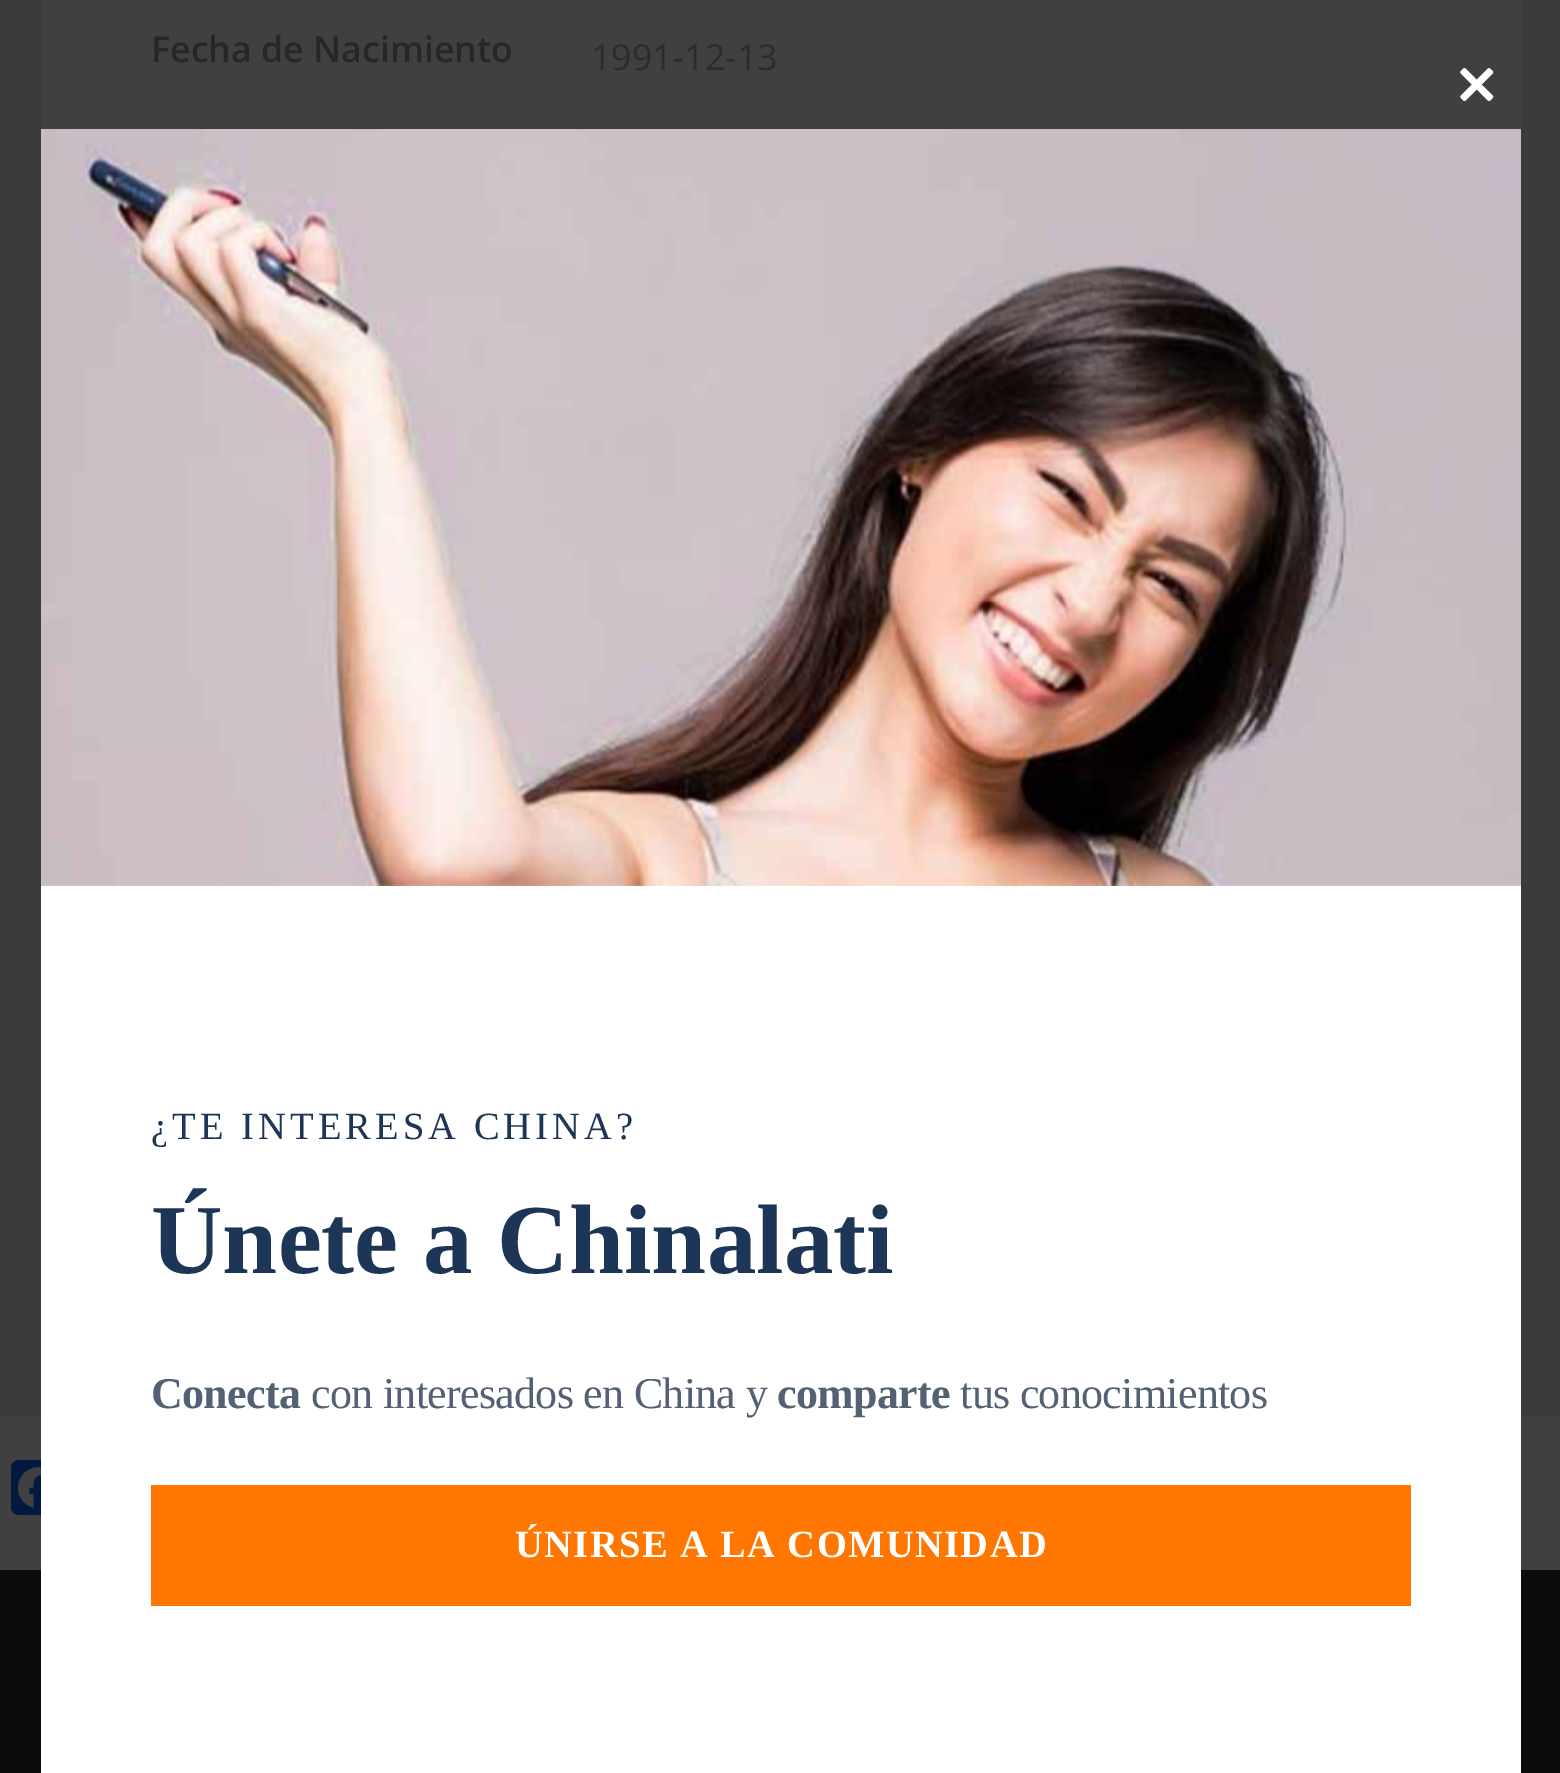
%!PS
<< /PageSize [1560 1773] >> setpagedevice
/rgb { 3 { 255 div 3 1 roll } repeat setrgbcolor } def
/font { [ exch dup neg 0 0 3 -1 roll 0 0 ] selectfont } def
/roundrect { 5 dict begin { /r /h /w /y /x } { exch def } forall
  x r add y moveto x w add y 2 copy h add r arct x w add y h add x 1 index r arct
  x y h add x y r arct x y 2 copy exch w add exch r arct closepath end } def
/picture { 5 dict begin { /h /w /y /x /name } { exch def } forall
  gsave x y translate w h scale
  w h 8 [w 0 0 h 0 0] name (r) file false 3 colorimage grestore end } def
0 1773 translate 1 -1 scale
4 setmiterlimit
64 64 64 rgb
0 0 1560 1773 rectfill
59 59 59 rgb
0 0 1560 1416 rectfill
64 64 64 rgb
41 0 1480 129 rectfill
2 26 64 rgb
11 1460 55 55 8 roundrect fill
(img/1.rgb) 17 1467 24 41 picture
12 12 12 rgb
0 1570 1560 203 rectfill
255 255 255 rgb
41 883 1480 890 rectfill
(img/2.rgb) 1460 68 34 34 picture
(img/3.rgb) 41 129 1480 757 picture
255 119 0 rgb
151 1485 1260 121 rectfill
/OpenSans-SemiBold 35.75 font
37 39 41 rgb
151 62 moveto (Fecha de Nacimiento) show
/OpenSans-Regular 35.75 font
44 44 44 rgb
591 70 moveto (1991-12-13) show
/LiberationSerif-Regular 38.5 font
29 53 87 rgb
151 1139 moveto 4.1 0 (¿TE INTERESA CHINA?) ashow
/LiberationSerif-Bold 99 font
151 1273 moveto (Únete a Chinalati) show
/LiberationSerif-Bold 44 font
84 96 115 rgb
151 1408 moveto -0.7 0 (Conecta) ashow
/LiberationSerif-Regular 44 font
311 1408 moveto -0.7 0 (con interesados en China y) ashow
/LiberationSerif-Bold 44 font
777 1408 moveto -0.7 0 (comparte) ashow
/LiberationSerif-Regular 44 font
960 1408 moveto -0.7 0 (tus conocimientos) ashow
/LiberationSerif-Bold 38.5 font
255 255 255 rgb
515 1557 moveto 1.4 0 (ÚNIRSE A LA COMUNIDAD) ashow
showpage
